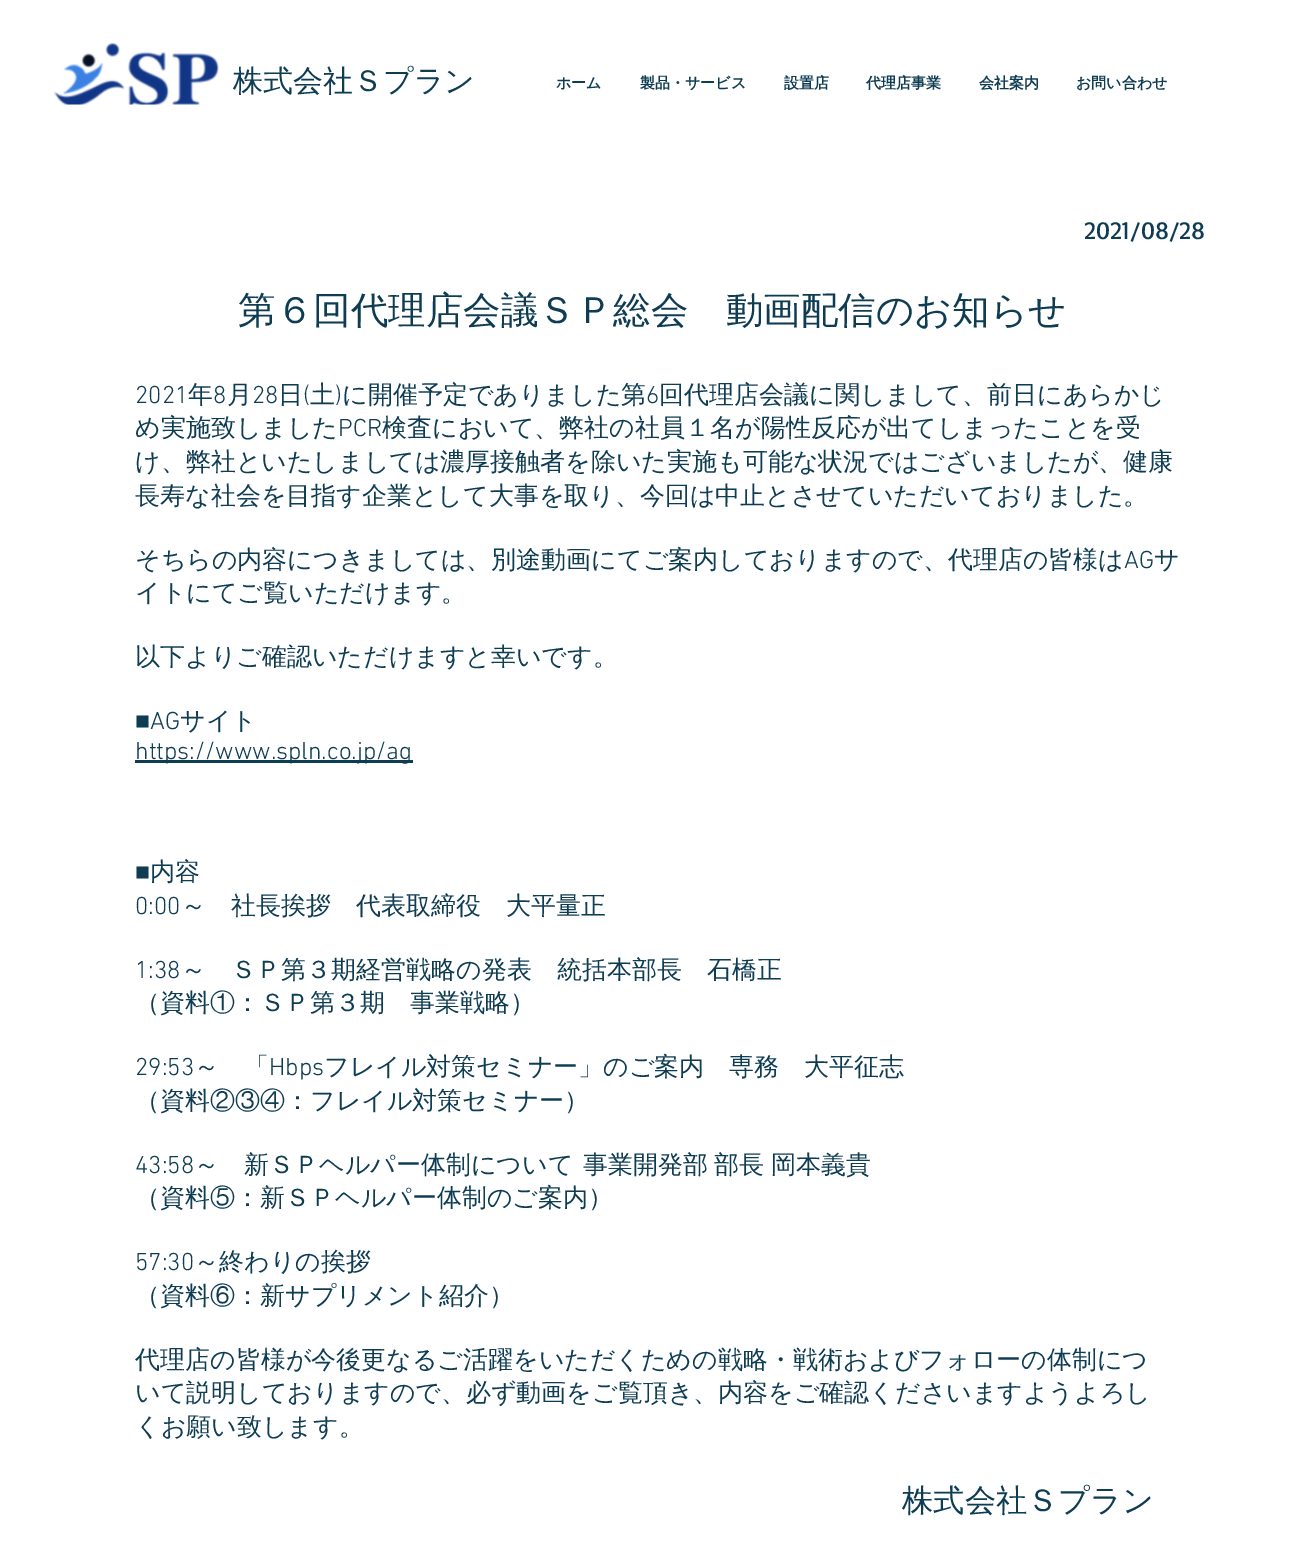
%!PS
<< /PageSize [1289 1559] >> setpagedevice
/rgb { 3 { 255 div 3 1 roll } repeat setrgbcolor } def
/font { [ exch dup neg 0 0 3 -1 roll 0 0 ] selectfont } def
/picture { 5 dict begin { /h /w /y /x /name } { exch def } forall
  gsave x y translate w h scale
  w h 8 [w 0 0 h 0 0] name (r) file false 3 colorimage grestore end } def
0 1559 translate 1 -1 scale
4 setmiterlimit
255 255 255 rgb
0 0 1289 1559 rectfill
(img/1.rgb) 54 42 165 63 picture
14 60 83 rgb
135 760 278 3 rectfill
/WenQuanYiZenHei-Medium 30 font
233 91 moveto (株式会社Ｓプラン) show
/WenQuanYiZenHei-Bold 15 font
[
  [(ホーム) 556 88]
  [(製品・サービス) 640 88]
  [(設置店) 784 88]
  [(代理店事業) 866 88]
  [(会社案内) 979 88]
  [(お問い合わせ) 1076 88]
] { aload pop moveto show } forall
/Basic-Regular 25 font
1084 239 moveto (2021/08/28) show
/WenQuanYiZenHei-Medium 37.5 font
238 323 moveto (第６回代理店会議ＳＰ総会　動画配信のお知らせ) show
/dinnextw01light-Light 25 font
135 403 moveto (2021) show
/WenQuanYiZenHei-Medium 25 font
188 403 moveto (年) show
/dinnextw01light-Light 25 font
213 403 moveto (8) show
/WenQuanYiZenHei-Medium 25 font
227 403 moveto (月) show
/dinnextw01light-Light 25 font
252 403 moveto (28) show
/WenQuanYiZenHei-Medium 25 font
278 403 moveto (日) show
/dinnextw01light-Light 25 font
303 403 moveto (\() show
/WenQuanYiZenHei-Medium 25 font
310 403 moveto (土) show
/dinnextw01light-Light 25 font
335 403 moveto (\)) show
/WenQuanYiZenHei-Medium 25 font
342 403 moveto (に開催予定でありました第) show
/dinnextw01light-Light 25 font
646 403 moveto (6) show
/WenQuanYiZenHei-Medium 25 font
659 403 moveto (回代理店会議に関しまして、前日にあらかじ) show
135 436 moveto (め実施致しました) show
/dinnextw01light-Light 25 font
338 436 moveto (PCR) show
/WenQuanYiZenHei-Medium 25 font
[
  [(検査において、弊社の社員１名が陽性反応が出てしまったことを受) 382 436]
  [(け、弊社といたしましては濃厚接触者を除いた実施も可能な状況ではございましたが、健康) 135 470]
  [(長寿な社会を目指す企業として大事を取り、今回は中止とさせていただいておりました。) 135 504]
  [(そちらの内容につきましては、別途動画にてご案内しておりますので、代理店の皆様は) 135 568]
] { aload pop moveto show } forall
/dinnextw01light-Light 25 font
1124 568 moveto (AG) show
/WenQuanYiZenHei-Medium 25 font
[
  [(サ) 1154 568]
  [(イトにてご覧いただけます。) 135 601]
  [(以下よりご確認いただけますと幸いです。) 135 665]
] { aload pop moveto show } forall
/LiberationSans-Regular 25 font
135 729 moveto (■) show
/dinnextw01light-Light 25 font
150 729 moveto (AG) show
/WenQuanYiZenHei-Medium 25 font
180 729 moveto (サイト) show
/dinnextw01light-Light 25 font
135 759 moveto (https://www.spln.co.jp/ag) show
/LiberationSans-Regular 25 font
135 880 moveto (■) show
/WenQuanYiZenHei-Medium 25 font
150 880 moveto (内容) show
/dinnextw01light-Light 25 font
135 914 moveto (0:00) show
/WenQuanYiZenHei-Medium 25 font
181 914 moveto (～　社長挨拶　代表取締役　大平量正) show
/dinnextw01light-Light 25 font
135 978 moveto (1:38) show
/WenQuanYiZenHei-Medium 25 font
181 978 moveto (～　ＳＰ第３期経営戦略の発表　統括本部長　石橋正) show
135 1011 moveto (（資料①：ＳＰ第３期　事業戦略）) show
/dinnextw01light-Light 25 font
135 1075 moveto (29:53) show
/WenQuanYiZenHei-Medium 25 font
194 1075 moveto (～　「) show
/dinnextw01light-Light 25 font
269 1075 moveto (Hbps) show
/WenQuanYiZenHei-Medium 25 font
324 1075 moveto (フレイル対策セミナー」のご案内　専務　大平征志) show
135 1109 moveto (（資料②③④：フレイル対策セミナー）) show
/dinnextw01light-Light 25 font
135 1173 moveto (43:58) show
/WenQuanYiZenHei-Medium 25 font
194 1173 moveto (～　新ＳＰヘルパー体制について) show
583 1173 moveto -1 0 32 (事業開発部 部長 岡本義貴) widthshow
135 1206 moveto (（資料⑤：新ＳＰヘルパー体制のご案内）) show
/dinnextw01light-Light 25 font
135 1270 moveto (57:30) show
/WenQuanYiZenHei-Medium 25 font
[
  [(～終わりの挨拶) 194 1270]
  [(（資料⑥：新サプリメント紹介）) 135 1304]
  [(代理店の皆様が今後更なるご活躍をいただくための戦略・戦術およびフォローの体制につ) 135 1368]
  [(いて説明しておりますので、必ず動画をご覧頂き、内容をご確認くださいますようよろし) 135 1401]
  [(くお願い致します。) 135 1435]
] { aload pop moveto show } forall
/WenQuanYiZenHei-Medium 31.25 font
902 1511 moveto (株式会社Ｓプラン) show
showpage
